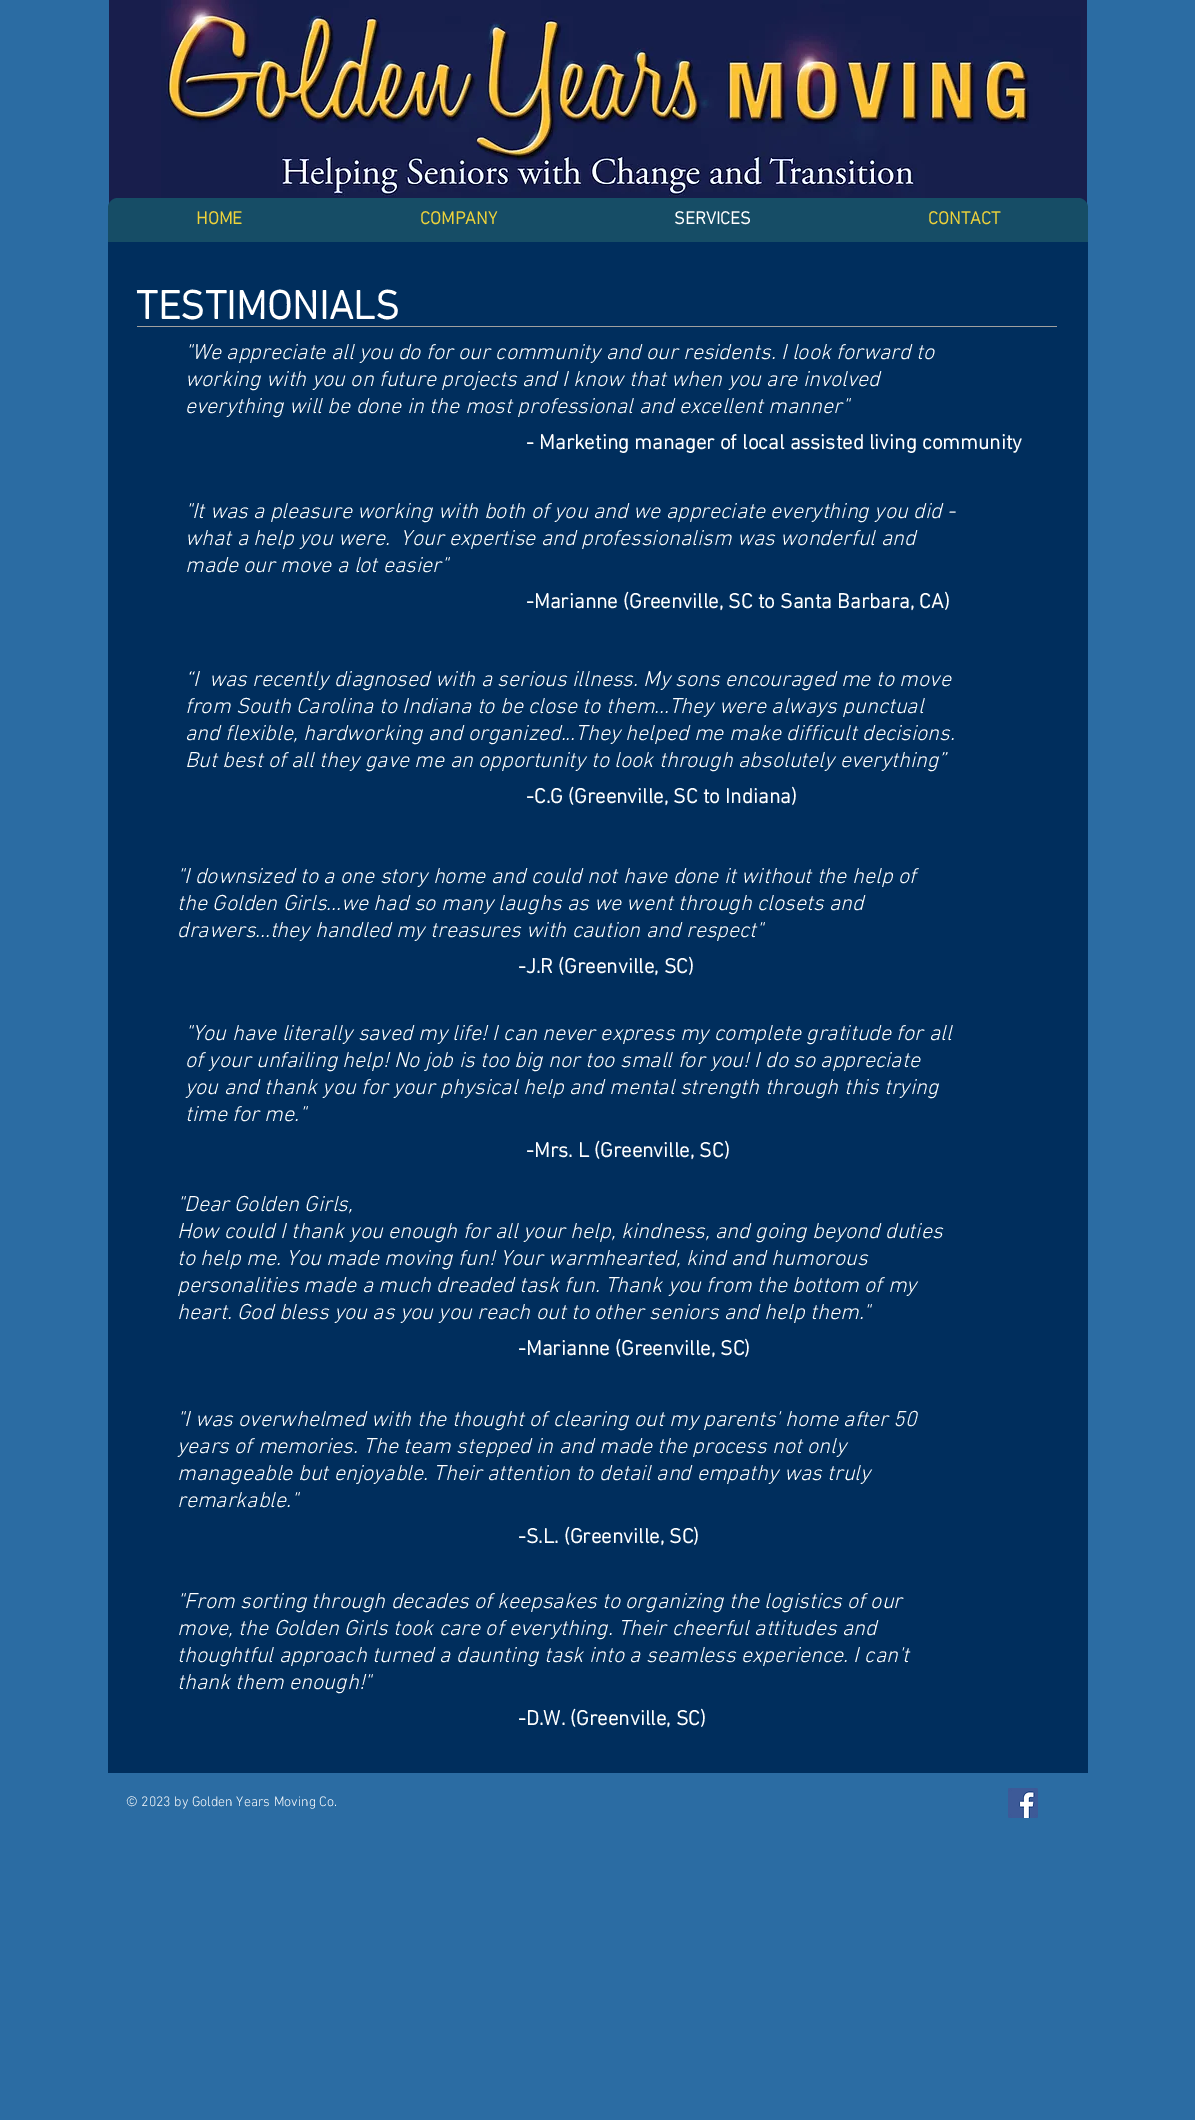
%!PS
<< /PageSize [1195 2120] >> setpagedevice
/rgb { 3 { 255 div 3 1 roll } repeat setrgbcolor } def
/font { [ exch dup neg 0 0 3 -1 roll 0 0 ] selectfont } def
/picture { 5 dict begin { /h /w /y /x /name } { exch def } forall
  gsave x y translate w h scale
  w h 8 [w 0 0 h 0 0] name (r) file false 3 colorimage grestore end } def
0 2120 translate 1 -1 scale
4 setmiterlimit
43 108 163 rgb
0 0 1195 2120 rectfill
24 30 76 rgb
109 0 978 204 rectfill
(img/1.rgb) 161 0 920 199 picture
22 77 102 rgb
118 198 moveto 1078 198 lineto 1083.5 198 1088 202.5 1088 208 curveto 1088 242 lineto 108 242 lineto 108 208 lineto 108 202.5 112.5 198 118 198 curveto closepath fill
0 46 93 rgb
108 242 980 1531 rectfill
160 160 159 rgb
137 326 920 1 rectfill
(img/2.rgb) 1008 1788 30 30 picture
/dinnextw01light-Bold 18 font
237 210 59 rgb
196 224 moveto (HOME) show
420 224 moveto (COMPANY) show
255 255 255 rgb
674 224 moveto (SERVICES) show
237 210 59 rgb
928 224 moveto (CONTACT) show
/dinnextw01light-Bold 41 font
255 255 255 rgb
136 319 moveto (TESTIMONIALS) show
/dinnextw01light-LightItalic 22 font
[
  [("We appreciate all you do for our community and our residents. I look forward to) 185 359]
  [(working with you on future projects and I know that when you are involved) 185 386]
  [(everything will be done in the most professional and excellent manner") 185 413]
] { aload pop moveto show } forall
/dinnextw01light-Bold 21 font
526 449 moveto (- Marketing manager of local assisted living community) show
/dinnextw01light-LightItalic 22 font
[
  [("It was a pleasure working with both of you and we appreciate everything you did -) 185 518]
  [(what a help you were.  Your expertise and professionalism was wonderful and) 185 545]
  [(made our move a lot easier") 185 572]
] { aload pop moveto show } forall
/dinnextw01light-Bold 21 font
526 608 moveto (-Marianne \(Greenville, SC to Santa Barbara, CA\)) show
/dinnextw01light-LightItalic 22 font
[
  [(“I  was recently diagnosed with a serious illness. My sons encouraged me to move) 185 686]
  [(from South Carolina to Indiana to be close to them...They were always punctual) 185 713]
  [(and flexible, hardworking and organized...They helped me make difficult decisions.) 185 740]
  [(But best of all they gave me an opportunity to look through absolutely everything”) 185 767]
] { aload pop moveto show } forall
/dinnextw01light-Bold 21 font
526 803 moveto (-C.G \(Greenville, SC to Indiana\)) show
/dinnextw01light-LightItalic 22 font
[
  [("I downsized to a one story home and could not have done it without the help of) 177 883]
  [(the Golden Girls...we had so many laughs as we went through closets and) 177 910]
  [(drawers...they handled my treasures with caution and respect") 177 937]
] { aload pop moveto show } forall
/dinnextw01light-Bold 21 font
518 973 moveto (-J.R \(Greenville, SC\)) show
/dinnextw01light-LightItalic 22 font
[
  [("You have literally saved my life! I can never express my complete gratitude for all) 185 1040]
  [(of your unfailing help! No job is too big nor too small for you! I do so appreciate) 185 1067]
  [(you and thank you for your physical help and mental strength through this trying) 185 1094]
  [(time for me.") 185 1121]
] { aload pop moveto show } forall
/dinnextw01light-Bold 21 font
526 1157 moveto (-Mrs. L \(Greenville, SC\)) show
/dinnextw01light-LightItalic 22 font
[
  [("Dear Golden Girls,) 177 1211]
  [(How could I thank you enough for all your help, kindness, and going beyond duties) 177 1238]
  [(to help me. You made moving fun! Your warmhearted, kind and humorous) 177 1265]
  [(personalities made a much dreaded task fun. Thank you from the bottom of my) 177 1292]
  [(heart. God bless you as you you reach out to other seniors and help them.") 177 1319]
] { aload pop moveto show } forall
/dinnextw01light-Bold 21 font
518 1355 moveto (-Marianne \(Greenville, SC\)) show
/dinnextw01light-LightItalic 22 font
[
  [("I was overwhelmed with the thought of clearing out my parents' home after 50) 177 1426]
  [(years of memories. The team stepped in and made the process not only) 177 1453]
  [(manageable but enjoyable. Their attention to detail and empathy was truly) 177 1480]
  [(remarkable.") 177 1507]
] { aload pop moveto show } forall
/dinnextw01light-Bold 21 font
518 1543 moveto (-S.L. \(Greenville, SC\)) show
/dinnextw01light-LightItalic 22 font
[
  [("From sorting through decades of keepsakes to organizing the logistics of our) 177 1608]
  [(move, the Golden Girls took care of everything. Their cheerful attitudes and) 177 1635]
  [(thoughtful approach turned a daunting task into a seamless experience. I can't) 177 1662]
  [(thank them enough!") 177 1689]
] { aload pop moveto show } forall
/dinnextw01light-Bold 21 font
518 1725 moveto (-D.W. \(Greenville, SC\)) show
/dinnextw01light-Light 14 font
126 1806 moveto (© 2023 by Golden Years Moving Co.) show
showpage
